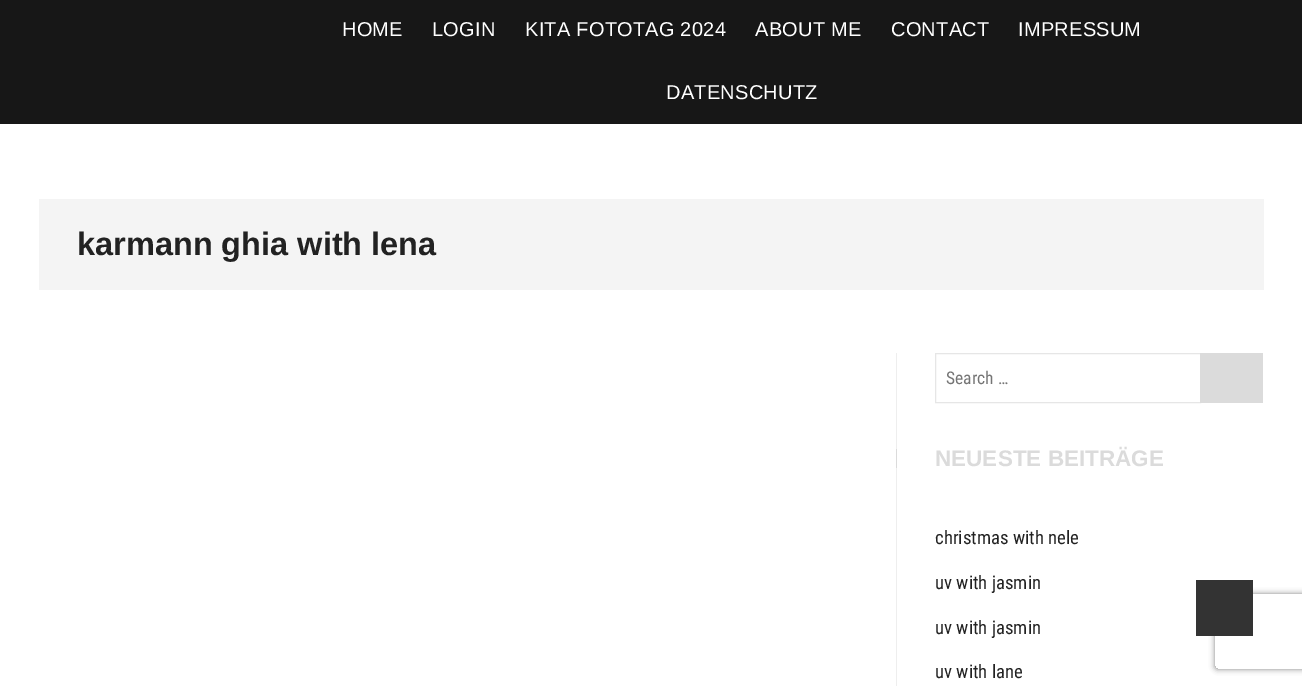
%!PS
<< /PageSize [1302 686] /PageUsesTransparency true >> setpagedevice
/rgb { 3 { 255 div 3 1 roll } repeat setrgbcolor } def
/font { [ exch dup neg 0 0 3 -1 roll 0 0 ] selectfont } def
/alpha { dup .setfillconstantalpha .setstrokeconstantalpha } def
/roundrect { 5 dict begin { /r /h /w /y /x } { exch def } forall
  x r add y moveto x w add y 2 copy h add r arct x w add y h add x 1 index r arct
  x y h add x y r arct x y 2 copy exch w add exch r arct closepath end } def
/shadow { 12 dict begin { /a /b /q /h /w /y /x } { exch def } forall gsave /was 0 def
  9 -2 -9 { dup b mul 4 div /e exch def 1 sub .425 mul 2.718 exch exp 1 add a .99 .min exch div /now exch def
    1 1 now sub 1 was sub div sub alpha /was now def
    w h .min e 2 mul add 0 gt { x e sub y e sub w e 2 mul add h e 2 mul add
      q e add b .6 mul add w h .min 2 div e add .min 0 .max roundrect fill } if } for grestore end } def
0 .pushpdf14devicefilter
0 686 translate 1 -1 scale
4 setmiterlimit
255 255 255 rgb
0 0 1302 686 rectfill
[
  [0 0 1302 124 23 23 23]
  [39 199 1225 91 244 244 244]
  [896 353 1 333 238 238 238]
] { aload pop rgb rectfill } forall
230 230 230 rgb
935.5 353.5 265 49 rectstroke
219 219 219 rgb
1200 353 63 50 rectfill
896 449 1 19 rectfill
gsave
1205 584 moveto 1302 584 lineto 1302 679 lineto 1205 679 lineto closepath 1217.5 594 moveto 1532.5 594 lineto 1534 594 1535 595 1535 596.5 curveto 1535 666.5 lineto 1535 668 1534 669 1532.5 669 curveto 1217.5 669 lineto 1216 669 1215 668 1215 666.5 curveto 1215 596.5 lineto 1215 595 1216 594 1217.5 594 curveto closepath eoclip newpath
128 128 128 rgb
1215 594 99 75 2.5 3 1 shadow
grestore
51 51 51 rgb
1196 580 57 56 rectfill
/LiberationSans-Regular 20 font
255 255 255 rgb
342 36 moveto 0.25 0 (HOME) ashow
432 36 moveto 0.25 0 (LOGIN) ashow
525 36 moveto 0.25 0 (KITA FOTOTAG 2024) ashow
755 36 moveto 0.25 0 (ABOUT ME) ashow
891 36 moveto 0.25 0 (CONTACT) ashow
1018 36 moveto 0.25 0 (IMPRESSUM) ashow
666 99 moveto 0.25 0 (DATENSCHUTZ) ashow
/LiberationSans-Bold 32.5 font
34 34 34 rgb
77 255 moveto (karmann ghia with lena) show
/RobotoCondensed-Regular 17.5 font
117 117 117 rgb
946 384 moveto (Search …) show
/LiberationSans-Bold 22.5 font
219 219 219 rgb
935 466 moveto (NEUESTE BEITRÄGE) show
/RobotoCondensed-Regular 18.75 font
34 34 34 rgb
[
  [(christmas with nele) 935 544]
  [(uv with jasmin) 935 589]
  [(uv with jasmin) 935 634]
  [(uv with lane) 935 678]
] { aload pop moveto show } forall
.poppdf14devicefilter showpage
